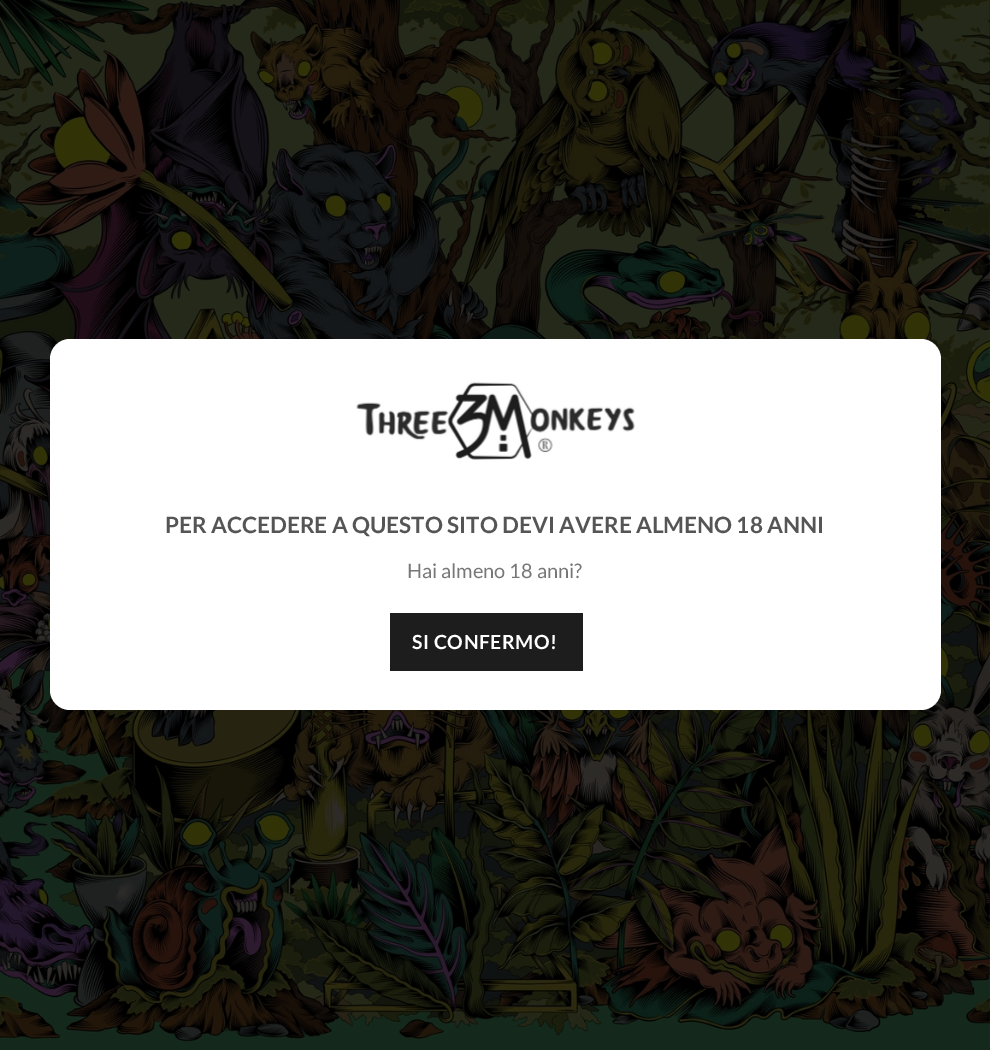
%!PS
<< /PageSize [990 1050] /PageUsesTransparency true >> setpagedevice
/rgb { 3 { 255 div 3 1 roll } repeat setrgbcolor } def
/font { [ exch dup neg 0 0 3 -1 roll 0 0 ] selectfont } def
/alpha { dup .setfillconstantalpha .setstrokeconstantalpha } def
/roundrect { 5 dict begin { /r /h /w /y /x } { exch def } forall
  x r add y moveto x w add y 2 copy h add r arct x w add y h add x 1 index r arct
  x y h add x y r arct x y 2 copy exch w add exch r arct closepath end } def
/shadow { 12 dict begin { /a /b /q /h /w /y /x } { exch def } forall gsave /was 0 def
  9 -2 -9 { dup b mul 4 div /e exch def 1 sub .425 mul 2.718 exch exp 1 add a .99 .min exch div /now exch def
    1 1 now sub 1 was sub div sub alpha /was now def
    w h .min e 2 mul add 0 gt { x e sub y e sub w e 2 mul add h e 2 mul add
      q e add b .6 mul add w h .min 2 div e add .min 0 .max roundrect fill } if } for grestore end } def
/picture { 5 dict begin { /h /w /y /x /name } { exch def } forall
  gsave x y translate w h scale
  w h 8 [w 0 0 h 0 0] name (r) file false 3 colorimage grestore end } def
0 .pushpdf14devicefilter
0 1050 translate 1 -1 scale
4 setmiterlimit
255 255 255 rgb
0 0 990 1050 rectfill
0 0 0 rgb
1 1 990 137 0 6 0.15 shadow
(img/1.rgb) 0 0 990 1050 picture
255 255 255 rgb
50 339 891 371 20 roundrect fill
(img/2.rgb) 356 382 279 78 picture
29 29 29 rgb
390 613 193 58 rectfill
/Lato-Bold 22.5 font
85 85 85 rgb
165 533 moveto (PER ACCEDERE A QUESTO SITO DEVI AVERE ALMENO 18 ANNI) show
/Lato-Regular 20 font
119 119 119 rgb
407 578 moveto (Hai almeno 18 anni?) show
/Lato-Bold 19.5 font
255 255 255 rgb
412 649 moveto 0.5 0 (SI CONFERMO!) ashow
.poppdf14devicefilter showpage
